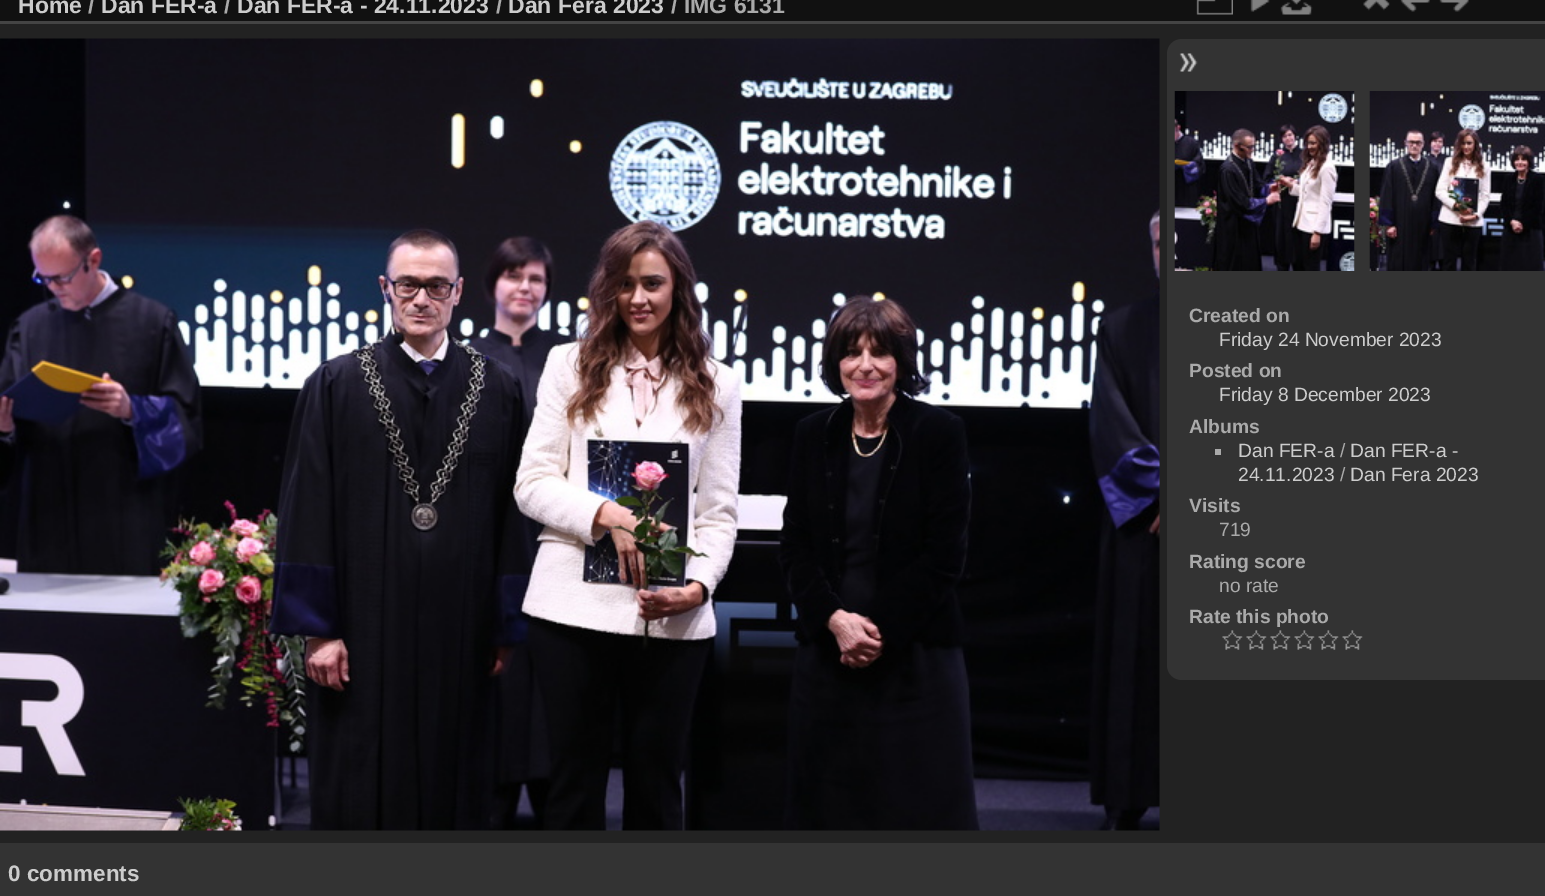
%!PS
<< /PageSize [1545 896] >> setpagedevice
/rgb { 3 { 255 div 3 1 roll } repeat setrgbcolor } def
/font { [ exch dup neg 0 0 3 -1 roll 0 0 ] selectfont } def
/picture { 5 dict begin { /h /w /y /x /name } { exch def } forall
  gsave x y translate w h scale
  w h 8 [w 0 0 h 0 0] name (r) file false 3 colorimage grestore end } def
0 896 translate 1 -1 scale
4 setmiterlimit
34 34 34 rgb
0 0 1545 896 rectfill
17 17 17 rgb
0 0 1545 21 rectfill
68 68 68 rgb
0 21 1545 3 rectfill
(img/1.rgb) 1196 0 37 15 picture
(img/2.rgb) 1250 0 20 12 picture
(img/3.rgb) 1280 0 33 15 picture
(img/4.rgb) 1363 0 27 11 picture
(img/5.rgb) 1400 0 30 12 picture
(img/6.rgb) 1439 0 30 12 picture
(img/7.rgb) 0 38 1160 793 picture
51 51 51 rgb
1182 39 moveto 1545 39 lineto 1545 680 lineto 1182 680 lineto 1173.5 680 1167 673.5 1167 665 curveto 1167 54 lineto 1167 45.5 1173.5 39 1182 39 curveto closepath fill
(img/8.rgb) 1179 53 19 19 picture
(img/9.rgb) 1174 91 181 180 picture
(img/10.rgb) 1369 91 176 180 picture
170 170 170 rgb
1215 449 6 6 rectfill
(img/11.rgb) 1222 630 21 20 picture
(img/11.rgb) 1246 630 21 20 picture
(img/11.rgb) 1270 630 21 20 picture
(img/12.rgb) 1294 630 21 20 picture
(img/12.rgb) 1318 630 21 20 picture
(img/12.rgb) 1342 630 21 20 picture
51 51 51 rgb
0 843 1545 53 rectfill
/LiberationSans-Bold 23 font
204 204 204 rgb
18 13 moveto (Home) show
170 170 170 rgb
88 13 moveto (/) show
204 204 204 rgb
101 13 moveto (Dan FER-a) show
170 170 170 rgb
224 13 moveto (/) show
204 204 204 rgb
237 13 moveto (Dan FER-a - 24.11.2023) show
170 170 170 rgb
496 13 moveto (/) show
204 204 204 rgb
508 13 moveto (Dan Fera 2023) show
170 170 170 rgb
671 13 moveto (/ IMG 6131) show
/LiberationSans-Bold 19.25 font
1189 322 moveto (Created on) show
/LiberationSans-Regular 19.25 font
204 204 204 rgb
1219 346 moveto (Friday 24 November 2023) show
/LiberationSans-Bold 19.25 font
170 170 170 rgb
1189 377 moveto (Posted on) show
/LiberationSans-Regular 19.25 font
204 204 204 rgb
1219 401 moveto (Friday 8 December 2023) show
/LiberationSans-Bold 19.25 font
170 170 170 rgb
1189 433 moveto (Albums) show
/LiberationSans-Regular 19.25 font
204 204 204 rgb
1238 457 moveto (Dan FER-a) show
170 170 170 rgb
1340 457 moveto (/) show
204 204 204 rgb
1350 457 moveto (Dan FER-a -) show
1238 481 moveto (24.11.2023) show
170 170 170 rgb
1340 481 moveto (/) show
204 204 204 rgb
1350 481 moveto (Dan Fera 2023) show
/LiberationSans-Bold 19.25 font
170 170 170 rgb
1189 512 moveto (Visits) show
/LiberationSans-Regular 19.25 font
1219 536 moveto (719) show
/LiberationSans-Bold 19.25 font
1189 568 moveto (Rating score) show
/LiberationSans-Regular 19.25 font
1219 592 moveto (no rate) show
/LiberationSans-Bold 19.25 font
1189 623 moveto (Rate this photo) show
/LiberationSans-Bold 22.5 font
204 204 204 rgb
8 881 moveto (0 comments) show
showpage
